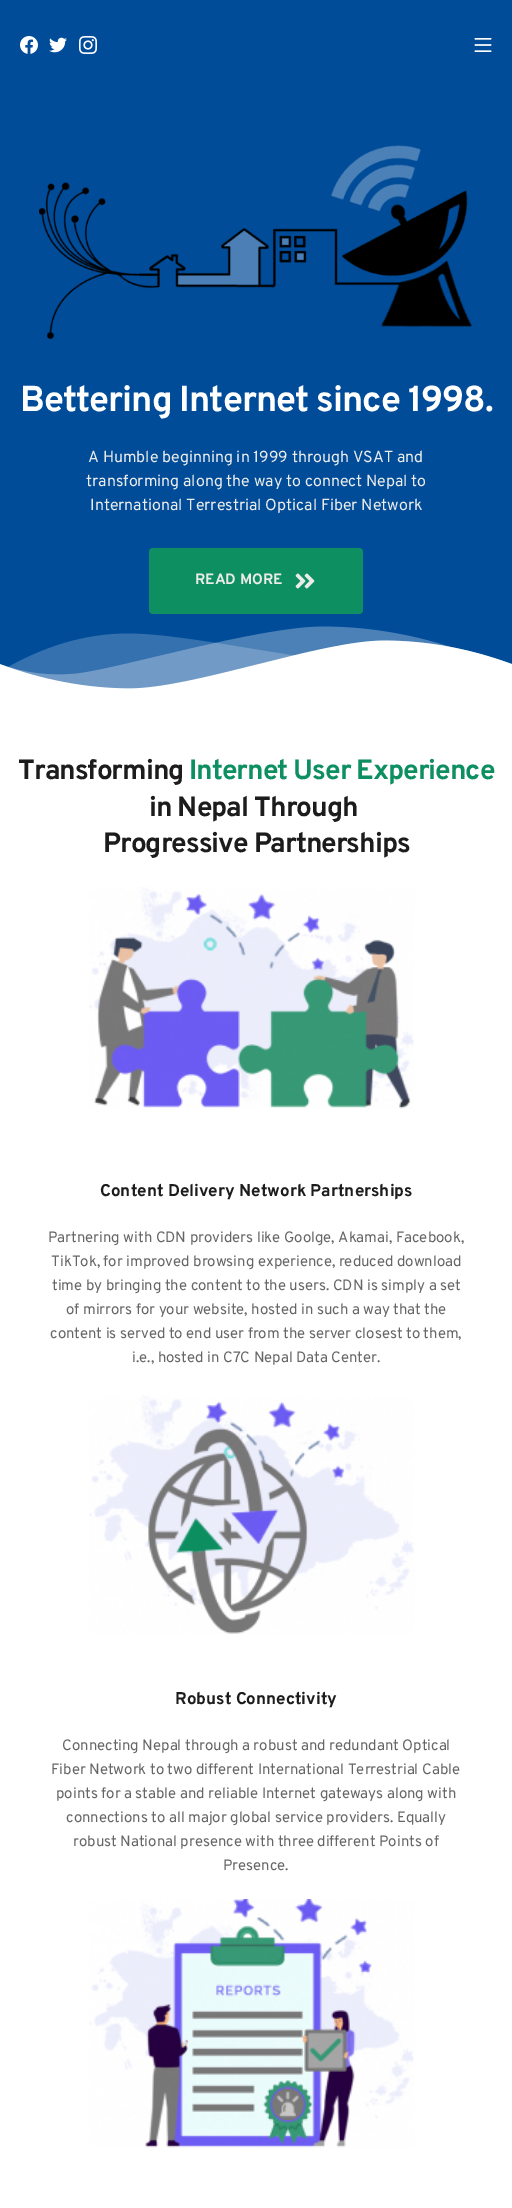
%!PS
<< /PageSize [512 2208] >> setpagedevice
/rgb { 3 { 255 div 3 1 roll } repeat setrgbcolor } def
/font { [ exch dup neg 0 0 3 -1 roll 0 0 ] selectfont } def
/roundrect { 5 dict begin { /r /h /w /y /x } { exch def } forall
  x r add y moveto x w add y 2 copy h add r arct x w add y h add x 1 index r arct
  x y h add x y r arct x y 2 copy exch w add exch r arct closepath end } def
/picture { 5 dict begin { /h /w /y /x /name } { exch def } forall
  gsave x y translate w h scale
  w h 8 [w 0 0 h 0 0] name (r) file false 3 colorimage grestore end } def
0 2208 translate 1 -1 scale
4 setmiterlimit
255 255 255 rgb
0 0 512 2208 rectfill
0 76 153 rgb
0 0 512 689 rectfill
(img/1.rgb) 20 36 18 18 picture
(img/2.rgb) 49 37 18 16 picture
(img/3.rgb) 79 36 18 18 picture
(img/4.rgb) 474 38 18 14 picture
(img/5.rgb) 0 626 512 98 picture
(img/6.rgb) 39 145 433 194 picture
13 143 97 rgb
149 548 214 66 4 roundrect fill
(img/7.rgb) 295 573 20 16 picture
(img/8.rgb) 89 887 325 222 picture
(img/9.rgb) 89 1395 325 239 picture
(img/10.rgb) 89 1899 325 249 picture
/Overpass-Bold 36 font
255 255 255 rgb
20 411 moveto -1 0 (Bettering Internet since 1998.) ashow
/Overpass-Regular 16 font
235 235 235 rgb
[
  [(A Humble beginning in 1999 through VSAT and) 88 462]
  [(transforming along the way to connect Nepal to) 86 486]
  [(International Terrestrial Optical Fiber Network) 90 510]
] { aload pop moveto show } forall
/Overpass-Bold 15 font
195 584 moveto (READ MORE) show
/Overpass-Bold 28 font
28 28 28 rgb
18 779 moveto -1 0 (Transforming) ashow
13 143 97 rgb
189 779 moveto -1 0 (Internet User Experience) ashow
28 28 28 rgb
149 816 moveto -1 0 (in Nepal Through) ashow
103 852 moveto -1 0 (Progressive Partnerships) ashow
/Overpass-Bold 17 font
100 1196 moveto (Content Delivery Network Partnerships) show
/Overpass-Regular 15 font
102 102 102 rgb
[
  [(Partnering with CDN providers like Goolge, Akamai, Facebook,) 48 1242]
  [(TikTok, for improved browsing experience, reduced download) 51 1266]
  [(time by bringing the content to the users. CDN is simply a set) 52 1290]
  [(of mirrors for your website, hosted in such a way that the) 66 1314]
  [(content is served to end user from the server closest to them,) 50 1338]
  [(i.e., hosted in C7C Nepal Data Center.) 132 1362]
] { aload pop moveto show } forall
/Overpass-Bold 17 font
28 28 28 rgb
175 1704 moveto (Robust Connectivity) show
/Overpass-Regular 15 font
102 102 102 rgb
[
  [(Connecting Nepal through a robust and redundant Optical) 62 1750]
  [(Fiber Network to two different International Terrestrial Cable) 51 1774]
  [(points for a stable and reliable Internet gateways along with) 56 1798]
  [(connections to all major global service providers. Equally) 66 1822]
  [(robust National presence with three different Points of) 73 1846]
  [(Presence.) 223 1870]
] { aload pop moveto show } forall
showpage
